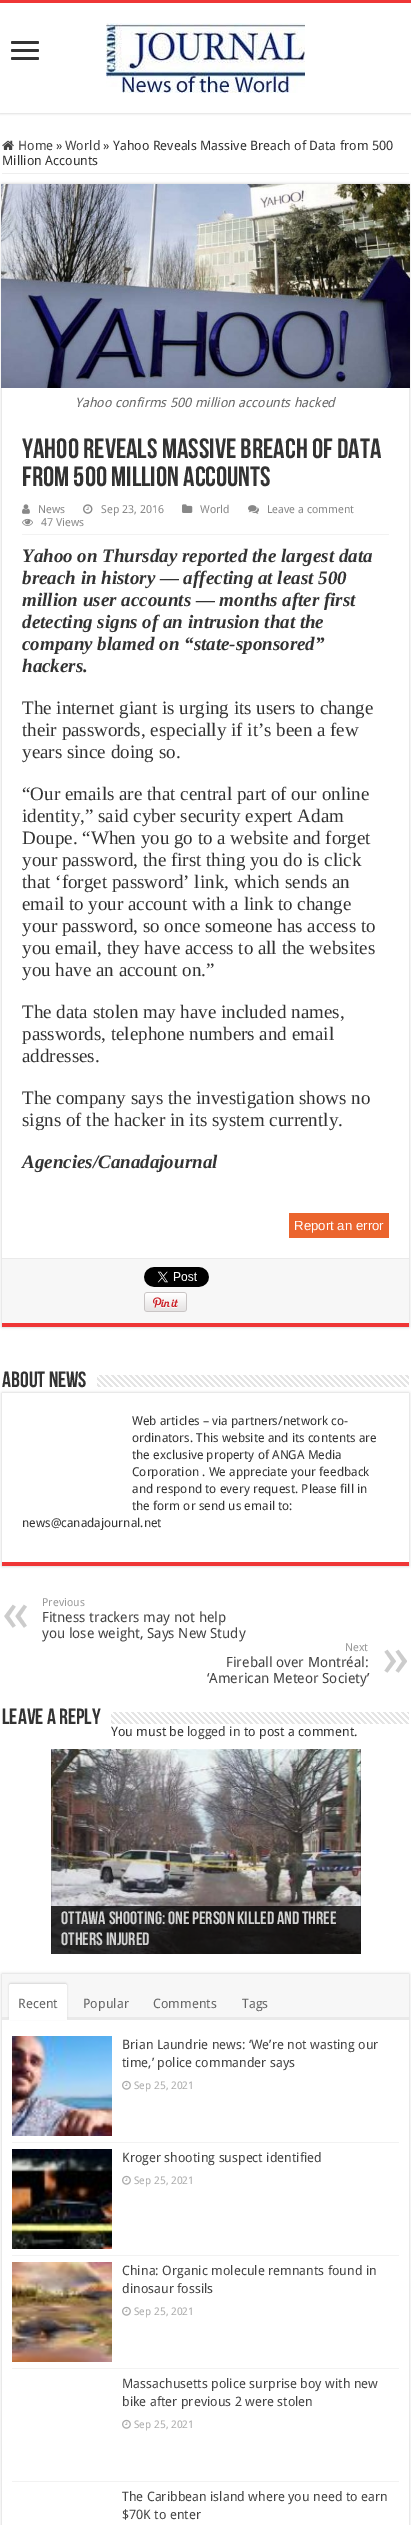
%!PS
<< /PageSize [411 2525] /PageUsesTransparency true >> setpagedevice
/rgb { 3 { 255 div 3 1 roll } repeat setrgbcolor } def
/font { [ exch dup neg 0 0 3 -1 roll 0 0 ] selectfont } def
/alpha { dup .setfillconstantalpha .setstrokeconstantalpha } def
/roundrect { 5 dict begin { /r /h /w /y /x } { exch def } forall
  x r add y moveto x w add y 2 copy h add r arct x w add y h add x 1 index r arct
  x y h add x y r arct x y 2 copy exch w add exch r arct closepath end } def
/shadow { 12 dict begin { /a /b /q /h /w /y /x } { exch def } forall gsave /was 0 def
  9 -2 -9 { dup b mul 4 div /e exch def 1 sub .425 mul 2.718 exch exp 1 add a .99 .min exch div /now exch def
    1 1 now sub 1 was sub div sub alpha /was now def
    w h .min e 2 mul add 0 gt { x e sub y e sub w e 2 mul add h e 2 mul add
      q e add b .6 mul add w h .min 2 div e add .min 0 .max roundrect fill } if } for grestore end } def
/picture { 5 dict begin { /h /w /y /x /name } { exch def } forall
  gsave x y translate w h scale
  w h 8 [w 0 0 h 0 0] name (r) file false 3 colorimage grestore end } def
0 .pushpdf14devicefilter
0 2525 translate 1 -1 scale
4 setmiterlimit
255 255 255 rgb
0 0 411 2525 rectfill
gsave
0 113 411 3 rectclip
202 202 202 rgb
0 0 411 113 0 1.5 1 shadow
grestore
239 54 54 rgb
0 0 411 3 rectfill
51 51 51 rgb
11 41 28 3 1.5 roundrect fill
11 49 28 3 1.5 roundrect fill
11 57 28 3 1.5 roundrect fill
(img/1.rgb) 106 23 199 70 picture
238 238 238 rgb
2 173 407 1 rectfill
(img/2.rgb) 2 140 12 10 picture
gsave
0 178 moveto 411 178 lineto 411 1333 lineto 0 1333 lineto closepath 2 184 moveto 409 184 lineto 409 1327 lineto 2 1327 lineto closepath eoclip newpath
202 202 202 rgb
2 184 407 1143 0 1.5 1 shadow
grestore
239 54 54 rgb
2 1323 407 4 rectfill
(img/3.rgb) 1 184 409 204 picture
242 242 242 rgb
22 534 367 1 rectfill
(img/4.rgb) 22 504 8 10 picture
(img/5.rgb) 83 504 10 10 picture
(img/6.rgb) 182 504 11 9 picture
(img/7.rgb) 248 505 11 9 picture
(img/8.rgb) 22 518 11 8 picture
[
  [289 1213 100 25 235 101 46]
  [2 1259 407 64 247 247 247]
  [2 1258 407 1 234 234 234]
] { aload pop rgb rectfill } forall
(img/9.rgb) 144 1267 65 20 picture
(img/10.rgb) 144 1292 43 20 picture
(img/11.rgb) 97 1375 312 12 picture
gsave
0 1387 moveto 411 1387 lineto 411 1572 lineto 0 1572 lineto closepath 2 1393 moveto 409 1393 lineto 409 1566 lineto 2 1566 lineto closepath eoclip newpath
202 202 202 rgb
2 1393 407 173 0 1.5 1 shadow
grestore
239 54 54 rgb
2 1562 407 4 rectfill
(img/12.rgb) 111 1712 298 12 picture
(img/13.rgb) 51 1749 310 205 picture
0.8 alpha
0 0 0 rgb
51 1906 310 48 rectfill
gsave
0 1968 moveto 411 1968 lineto 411 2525 lineto 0 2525 lineto closepath 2 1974 moveto 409 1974 lineto 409 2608 lineto 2 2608 lineto closepath eoclip newpath
1 alpha
202 202 202 rgb
2 1974 407 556 0 1.5 1 shadow
grestore
1 alpha
247 247 247 rgb
2 1974 407 43 rectfill
234 234 234 rgb
2 2017 407 3 rectfill
212 212 212 rgb
9 1983 58 36 2 1 1 shadow
255 255 255 rgb
11 1984 moveto 65 1984 lineto 66 1984 67 1985 67 1986 curveto 67 2020 lineto 9 2020 lineto 9 1986 lineto 9 1985 10 1984 11 1984 curveto closepath fill
242 242 242 rgb
12 2142 387 1 rectfill
(img/14.rgb) 12 2036 100 100 picture
(img/15.rgb) 122 2080 9 10 picture
12 2255 387 1 rectfill
(img/16.rgb) 12 2149 100 100 picture
(img/15.rgb) 122 2175 9 10 picture
12 2368 387 1 rectfill
(img/17.rgb) 12 2262 100 100 picture
(img/15.rgb) 122 2306 9 10 picture
12 2481 387 1 rectfill
(img/15.rgb) 122 2419 9 10 picture
/DroidSans-Regular 13 font
68 68 68 rgb
18 150 moveto (Home) show
51 51 51 rgb
56 150 moveto (») show
68 68 68 rgb
65 150 moveto (World) show
51 51 51 rgb
[
  [(») 103 150]
  [(Yahoo Reveals Massive Breach of Data from 500) 113 150]
  [(Million Accounts) 2 165]
] { aload pop moveto show } forall
/DroidSans-Italic 13 font
102 102 102 rgb
75 407 moveto (Yahoo confirms 500 million accounts hacked) show
/BebasNeue-Bold 28 font
51 51 51 rgb
22 458 moveto (Yahoo Reveals Massive Breach of Data) show
22 486 moveto (from 500 Million Accounts) show
/DroidSans-Regular 11 font
136 136 136 rgb
[
  [(News) 38 513]
  [(Sep 23, 2016) 101 513]
  [(World) 200 513]
  [(Leave a comment) 267 513]
  [(47 Views) 41 526]
] { aload pop moveto show } forall
/LiberationSerif-BoldItalic 19 font
51 51 51 rgb
[
  [(Yahoo on Thursday reported the largest data) 22 562]
  [(breach in history — affecting at least 500) 22 584]
  [(million user accounts — months after first) 22 606]
  [(detecting signs of an intrusion that the) 22 628]
  [(company blamed on “state-sponsored”) 22 650]
  [(hackers.) 22 672]
] { aload pop moveto show } forall
/LiberationSerif-Regular 19 font
[
  [(The internet giant is urging its users to change) 22 714]
  [(their passwords, especially if it’s been a few) 22 736]
  [(years since doing so.) 22 758]
  [(“Our emails are that central part of our online) 22 800]
  [(identity,” said cyber security expert Adam) 22 822]
  [(Doupe. “When you go to a website and forget) 22 844]
  [(your password, the first thing you do is click) 22 866]
  [(that ‘forget password’ link, which sends an) 22 888]
  [(email to your account with a link to change) 22 910]
  [(your password, so once someone has access to) 22 932]
  [(you email, they have access to all the websites) 22 954]
  [(you have an account on.”) 22 976]
  [(The data stolen may have included names,) 22 1018]
  [(passwords, telephone numbers and email) 22 1040]
  [(addresses.) 22 1062]
  [(The company says the investigation shows no) 22 1104]
  [(signs of the hacker in its system currently.) 22 1126]
] { aload pop moveto show } forall
/LiberationSerif-BoldItalic 19 font
22 1168 moveto (Agencies/Canadajournal) show
/LiberationSans-Regular 13.25 font
255 255 255 rgb
294 1230 moveto (Report an error) show
/BebasNeue-Bold 22 font
51 51 51 rgb
2 1387 moveto (About News) show
/DroidSans-Regular 12.3 font
[
  [(Web articles – via partners/network co-) 132 1425]
  [(ordinators. This website and its contents are) 132 1442]
  [(the exclusive property of ANGA Media) 132 1459]
  [(Corporation . We appreciate your feedback) 132 1476]
  [(and respond to every request. Please fill in) 132 1493]
  [(the form or send us email to:) 132 1510]
  [(news@canadajournal.net) 22 1527]
] { aload pop moveto show } forall
/DroidSans-Regular 11 font
153 153 153 rgb
42 1606 moveto (Previous) show
/DroidSans-Regular 56 font
204 204 204 rgb
2 1631 moveto («) show
/DroidSans-Regular 14 font
68 68 68 rgb
42 1622 moveto (Fitness trackers may not help) show
42 1638 moveto (you lose weight, Says New Study) show
/DroidSans-Regular 11 font
153 153 153 rgb
345 1651 moveto (Next) show
/DroidSans-Regular 14 font
68 68 68 rgb
226 1667 moveto (Fireball over Montréal:) show
/DroidSans-Regular 56 font
204 204 204 rgb
382 1676 moveto (») show
/DroidSans-Regular 14 font
68 68 68 rgb
207 1683 moveto (‘American Meteor Society’) show
/BebasNeue-Bold 22 font
51 51 51 rgb
2 1724 moveto (Leave a Reply) show
/DroidSans-Regular 13 font
111 1736 moveto (You must be) show
68 68 68 rgb
187 1736 moveto (logged in) show
51 51 51 rgb
244 1736 moveto (to post a comment.) show
/BebasNeue-Bold 18 font
210 210 210 rgb
61 1924 moveto (Ottawa shooting: One person killed and three) show
61 1945 moveto (others injured) show
/DroidSans-Regular 13 font
102 102 102 rgb
[
  [(Recent) 18 2008]
  [(Popular) 83 2008]
  [(Comments) 153 2008]
  [(Tags) 242 2008]
] { aload pop moveto show } forall
68 68 68 rgb
122 2049 moveto (Brian Laundrie news: ‘We’re not wasting our) show
122 2067 moveto (time,’ police commander says) show
/DroidSans-Regular 10.5 font
170 170 170 rgb
134 2089 moveto (Sep 25, 2021) show
/DroidSans-Regular 13 font
68 68 68 rgb
122 2162 moveto (Kroger shooting suspect identified) show
/DroidSans-Regular 10.5 font
170 170 170 rgb
134 2184 moveto (Sep 25, 2021) show
/DroidSans-Regular 13 font
68 68 68 rgb
122 2275 moveto (China: Organic molecule remnants found in) show
122 2293 moveto (dinosaur fossils) show
/DroidSans-Regular 10.5 font
170 170 170 rgb
134 2315 moveto (Sep 25, 2021) show
/DroidSans-Regular 13 font
68 68 68 rgb
122 2388 moveto (Massachusetts police surprise boy with new) show
122 2406 moveto (bike after previous 2 were stolen) show
/DroidSans-Regular 10.5 font
170 170 170 rgb
134 2428 moveto (Sep 25, 2021) show
/DroidSans-Regular 13 font
68 68 68 rgb
122 2501 moveto (The Caribbean island where you need to earn) show
122 2519 moveto ($70K to enter) show
.poppdf14devicefilter showpage
